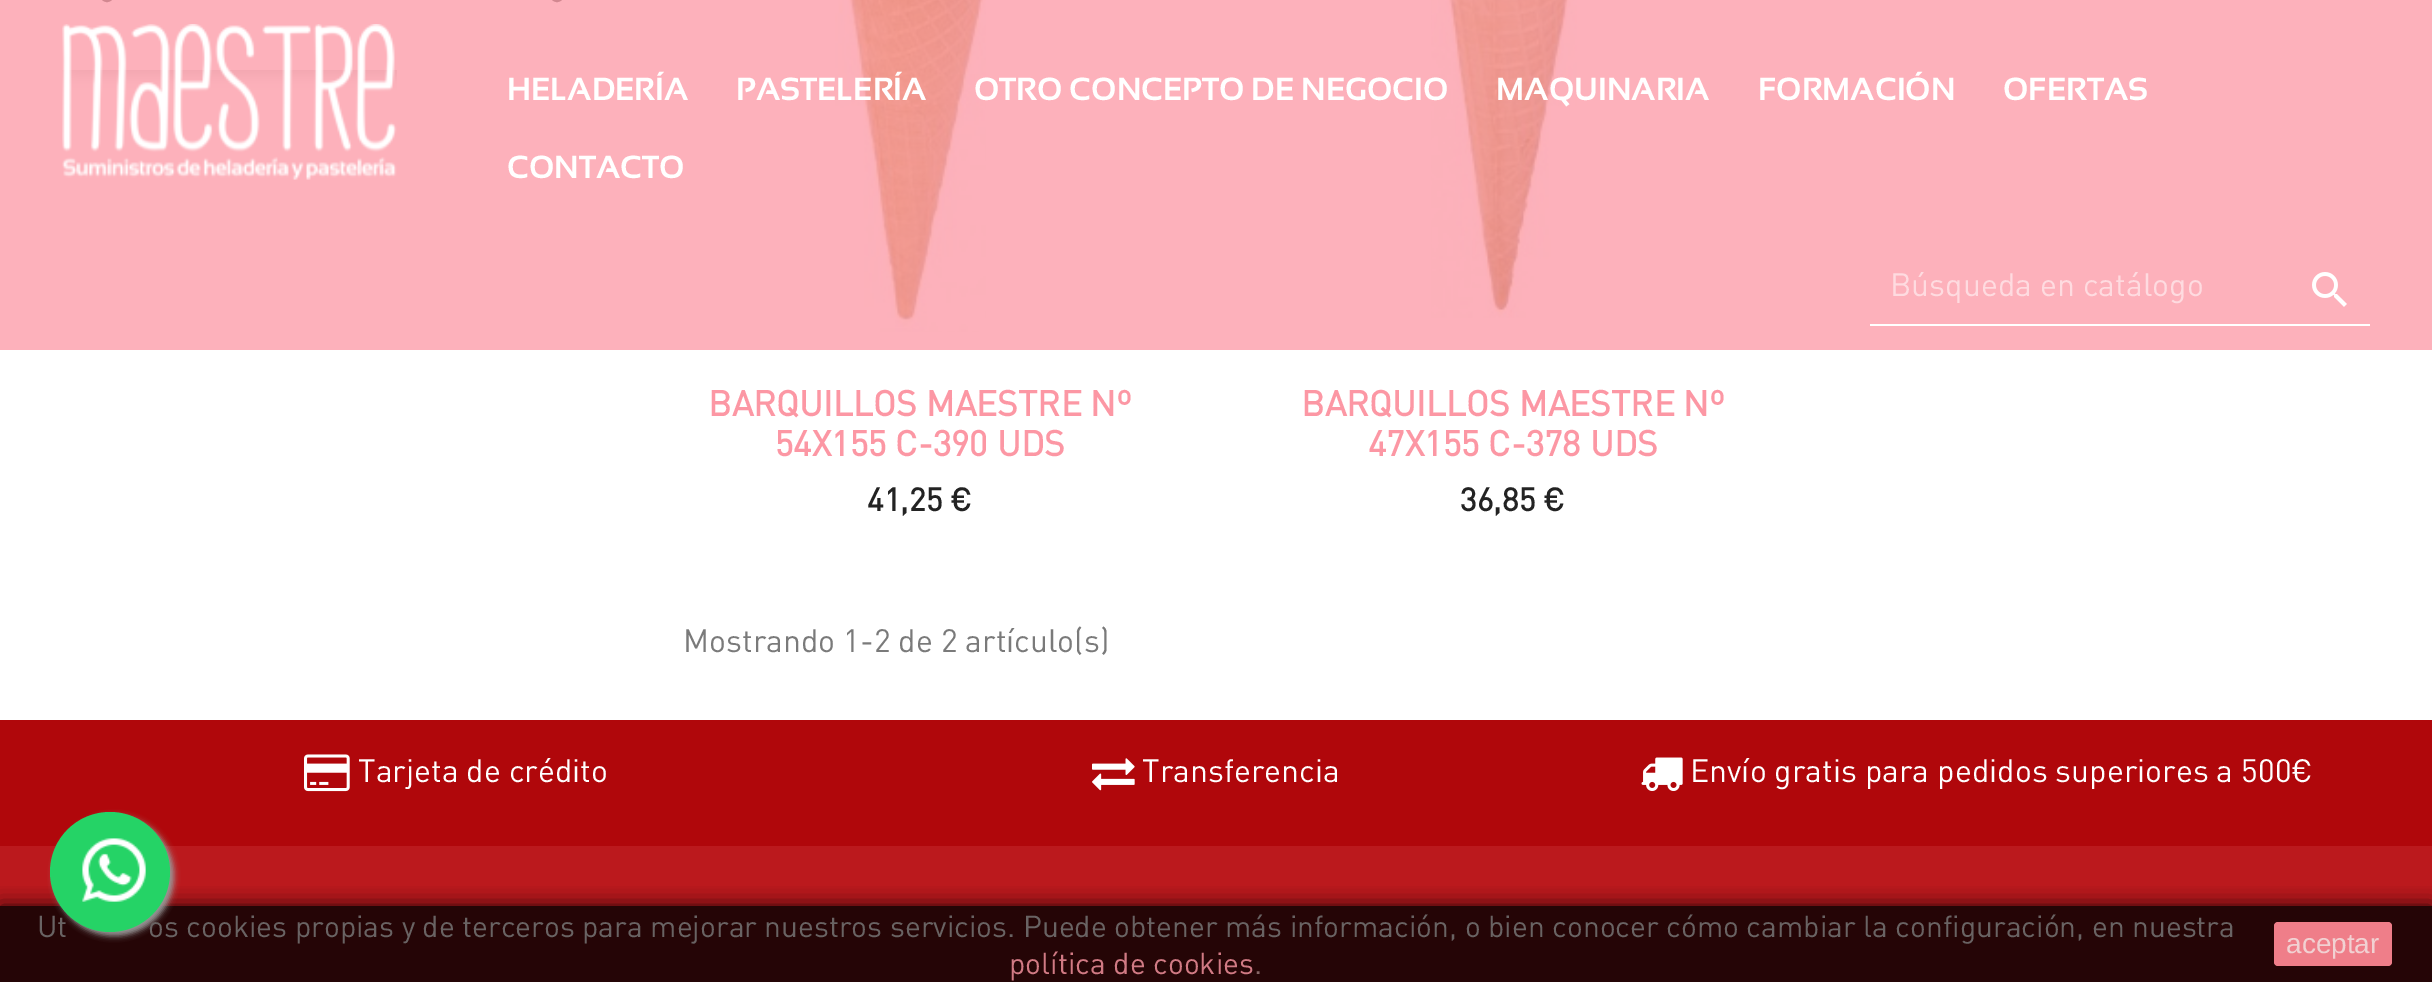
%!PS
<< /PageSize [2432 982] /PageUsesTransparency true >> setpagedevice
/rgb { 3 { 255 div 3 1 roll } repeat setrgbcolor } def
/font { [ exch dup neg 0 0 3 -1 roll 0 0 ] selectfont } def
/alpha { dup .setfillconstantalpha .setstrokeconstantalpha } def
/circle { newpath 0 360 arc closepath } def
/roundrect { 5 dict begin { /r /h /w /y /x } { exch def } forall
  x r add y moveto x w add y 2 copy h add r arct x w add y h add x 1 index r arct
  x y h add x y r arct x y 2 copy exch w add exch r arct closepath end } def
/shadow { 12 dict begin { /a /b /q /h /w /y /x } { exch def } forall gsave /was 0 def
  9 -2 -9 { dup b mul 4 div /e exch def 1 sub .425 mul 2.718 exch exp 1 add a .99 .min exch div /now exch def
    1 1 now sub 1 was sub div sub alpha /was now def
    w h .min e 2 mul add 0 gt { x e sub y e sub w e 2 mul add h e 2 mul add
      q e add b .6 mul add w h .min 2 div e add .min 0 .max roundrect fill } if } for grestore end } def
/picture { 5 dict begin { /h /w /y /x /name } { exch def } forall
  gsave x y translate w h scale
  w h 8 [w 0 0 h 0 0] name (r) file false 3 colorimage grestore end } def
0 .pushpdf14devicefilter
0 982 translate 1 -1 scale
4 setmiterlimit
255 255 255 rgb
0 0 2432 982 rectfill
253 177 187 rgb
0 0 2432 350 rectfill
(img/1.rgb) 62 24 335 156 picture
255 255 255 rgb
1870 324 500 2 rectfill
(img/2.rgb) 2312 272 35 35 picture
210 135 144 rgb
2 setlinewidth
101 -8 12 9 6 roundrect stroke
551 -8 12 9 6 roundrect stroke
(img/3.rgb) 835 0 151 332 picture
(img/4.rgb) 1431 0 146 318 picture
176 7 11 rgb
0 720 2432 126 rectfill
(img/5.rgb) 304 754 46 38 picture
(img/6.rgb) 1092 758 43 33 picture
(img/7.rgb) 1641 757 42 34 picture
187 25 29 rgb
0 846 2432 136 rectfill
gsave
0 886 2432 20 rectclip
0 0 0 rgb
0 906 2432 76 0 10 0.8 shadow
grestore
0.8 alpha
0 0 0 rgb
0 906 2432 76 rectfill
1 alpha
239 126 137 rgb
2274 922 118 44 4 roundrect fill
153 153 153 rgb
54 816 120 120 60 3 1 shadow
/Sansation-Bold 32 font
255 255 255 rgb
[
  [(HELADERÍA) 507 100]
  [(PASTELERÍA) 736 100]
  [(OTRO CONCEPTO DE NEGOCIO) 974 100]
  [(MAQUINARIA) 1496 100]
  [(FORMACIÓN) 1758 100]
  [(OFERTAS) 2003 100]
  [(CONTACTO) 507 178]
] { aload pop moveto show } forall
/DIN-Regular 32 font
254 219 224 rgb
1890 296 moveto (Búsqueda en catálogo) show
/DIN-Bold 35.25 font
252 151 164 rgb
708 416 moveto (BARQUILLOS MAESTRE Nº) show
775 456 moveto (54X155 C-390 UDS) show
/DIN-Bold 32 font
35 35 35 rgb
867 511 moveto (41,25 €) show
/DIN-Bold 35.25 font
252 151 164 rgb
1301 416 moveto (BARQUILLOS MAESTRE Nº) show
1368 456 moveto (47X155 C-378 UDS) show
/DIN-Bold 32 font
35 35 35 rgb
1460 511 moveto (36,85 €) show
/DIN-Regular 32 font
122 122 122 rgb
683 652 moveto (Mostrando 1-2 de 2 artículo\(s\)) show
255 255 255 rgb
[
  [(Tarjeta de crédito) 358 782]
  [(Transferencia) 1142 782]
  [(Envío gratis para pedidos superiores a 500€) 1690 782]
] { aload pop moveto show } forall
/DIN-Regular 30 font
105 99 99 rgb
37 937 moveto (Ut) show
148 937 moveto (os cookies propias y de terceros para mejorar nuestros servicios. Puede obtener más información, o bien conocer cómo cambiar la configuración, en nuestra) show
209 122 132 rgb
1009 974 moveto (política de cookies) show
135 103 103 rgb
1254 974 moveto (.) show
/LiberationSans-Regular 28 font
241 209 210 rgb
2286 953 moveto (aceptar) show
37 211 102 rgb
110 872 60 circle fill
(img/8.rgb) 82 838 64 64 picture
.poppdf14devicefilter showpage
